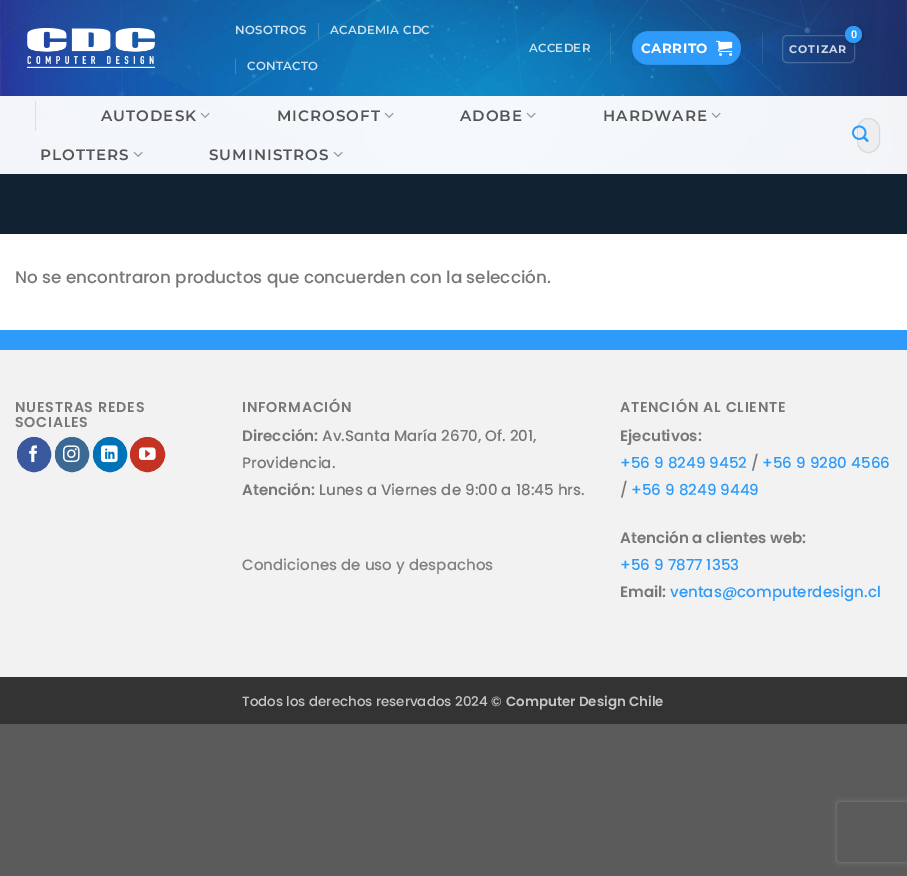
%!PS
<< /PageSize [907 876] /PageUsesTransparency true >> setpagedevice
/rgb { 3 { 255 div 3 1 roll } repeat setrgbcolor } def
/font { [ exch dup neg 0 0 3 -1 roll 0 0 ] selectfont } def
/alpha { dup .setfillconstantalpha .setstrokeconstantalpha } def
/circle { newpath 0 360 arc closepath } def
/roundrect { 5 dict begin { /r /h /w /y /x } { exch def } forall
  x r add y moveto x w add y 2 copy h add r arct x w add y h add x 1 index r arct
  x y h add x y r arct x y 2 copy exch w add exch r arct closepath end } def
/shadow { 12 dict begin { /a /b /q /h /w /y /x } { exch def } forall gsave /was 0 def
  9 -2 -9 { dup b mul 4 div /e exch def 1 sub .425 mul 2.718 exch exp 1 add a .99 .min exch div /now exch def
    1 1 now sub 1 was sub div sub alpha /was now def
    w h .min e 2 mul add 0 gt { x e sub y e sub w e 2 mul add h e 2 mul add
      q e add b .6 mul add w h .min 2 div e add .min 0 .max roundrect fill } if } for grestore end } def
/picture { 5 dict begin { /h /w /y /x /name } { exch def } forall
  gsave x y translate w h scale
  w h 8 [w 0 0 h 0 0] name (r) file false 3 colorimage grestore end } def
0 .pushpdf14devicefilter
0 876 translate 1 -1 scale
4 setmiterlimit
91 91 91 rgb
0 0 907 876 rectfill
255 255 255 rgb
0 234 907 96 rectfill
(img/1.rgb) 0 0 907 174 picture
(img/2.rgb) 27 28 128 40 picture
0.2 alpha
[
  [318 23 1 15 255 255 255]
  [235 59 1 15 255 255 255]
] { aload pop rgb rectfill } forall
0.1 alpha
[
  [610 33 1 30 255 255 255]
] { aload pop rgb rectfill } forall
1 alpha
46 154 249 rgb
632 31 109 34 17 roundrect fill
0.05 alpha
0 0 0 rgb
632.5 31.5 108 33 rectstroke
1 alpha
(img/3.rgb) 716 40 17 16 picture
0.1 alpha
255 255 255 rgb
762 33 1 30 rectfill
0.2 alpha
782.5 35.5 72 27 4.5 roundrect stroke
1 alpha
0 0 0 rgb
846 27 17 17 8.5 1.5 0.3 shadow
46 154 249 rgb
853.5 34.5 8.5 circle fill
0.95 alpha
255 255 255 rgb
0 96 907 78 rectfill
1 alpha
220 221 225 rgb
35 101 1 30 rectfill
(img/4.rgb) 200 112 10 6 picture
(img/5.rgb) 384 112 10 6 picture
(img/6.rgb) 526 112 10 6 picture
(img/7.rgb) 711 112 10 6 picture
(img/8.rgb) 133 151 10 6 picture
(img/9.rgb) 333 151 10 6 picture
236 238 240 rgb
857 118 23 35 11.5 roundrect fill
0.09 alpha
0 0 0 rgb
857.5 118.5 22 34 11 roundrect stroke
1 alpha
(img/10.rgb) 852 125 17 17 picture
[
  [0 174 907 60 17 34 51]
  [0 330 907 20 46 154 249]
  [0 350 907 327 242 242 242]
] { aload pop rgb rectfill } forall
58 88 157 rgb
17.5 437.5 33 34 16.5 roundrect gsave fill grestore
stroke
(img/11.rgb) 29 445 8 18 picture
59 105 148 rgb
55.5 437.5 33 34 16.5 roundrect gsave fill grestore
stroke
(img/12.rgb) 63 445 17 18 picture
0 114 183 rgb
93.5 437.5 33 34 16.5 roundrect gsave fill grestore
stroke
(img/13.rgb) 101 445 17 18 picture
195 50 35 rgb
147.5 454.5 17 circle gsave fill grestore
stroke
(img/14.rgb) 139 447 17 13 picture
51 51 51 rgb
0 677 907 47 rectfill
gsave
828 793 moveto 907 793 lineto 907 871 lineto 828 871 lineto closepath 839 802 moveto 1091 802 lineto 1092 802 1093 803 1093 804 curveto 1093 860 lineto 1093 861 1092 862 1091 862 curveto 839 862 lineto 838 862 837 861 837 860 curveto 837 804 lineto 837 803 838 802 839 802 curveto closepath eoclip newpath
128 128 128 rgb
837 802 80 60 2 2.5 1 shadow
grestore
/Montserrat-Thin 11.75 font
207 225 239 rgb
235 34 moveto 0.25 0 (NOSOTROS) ashow
330 34 moveto 0.25 0 (ACADEMIA CDC) ashow
247 70 moveto 0.25 0 (CONTACTO) ashow
529 52 moveto 0.25 0 (ACCEDER) ashow
/Montserrat-Bold 13.4 font
255 255 255 rgb
641 53 moveto 0.5 0 (CARRITO) ashow
/LiberationSans-Bold 11 font
851 38 moveto (0) show
/Montserrat-Bold 11 font
209 217 229 rgb
789 53 moveto 1 0 (COTIZAR) ashow
/Montserrat-Thin 15.1 font
85 85 85 rgb
101 121 moveto 1 0 (AUTODESK) ashow
277 121 moveto 1 0 (MICROSOFT) ashow
460 121 moveto 1 0 (ADOBE) ashow
603 121 moveto 1 0 (HARDWARE) ashow
40 160 moveto 1 0 (PLOTTERS) ashow
209 160 moveto 1 0 (SUMINISTROS) ashow
/Poppins-Medium 16.8 font
119 119 119 rgb
15 283 moveto (No se encontraron productos que concuerden con la selección.) show
/Poppins-SemiBold 14.25 font
15 412 moveto 0.75 0 (NUESTRAS REDES) ashow
15 427 moveto 0.75 0 (SOCIALES) ashow
242 412 moveto 0.75 0 (INFORMACIÓN) ashow
/Poppins-SemiBold 15.1 font
242 441 moveto (Dirección:) show
/Poppins-Medium 15.1 font
322 441 moveto (Av.Santa María 2670, Of. 201,) show
242 468 moveto (Providencia.) show
/Poppins-SemiBold 15.1 font
242 495 moveto (Atención:) show
/Poppins-Medium 15.1 font
319 495 moveto (Lunes a Viernes de 9:00 a 18:45 hrs.) show
128 128 128 rgb
242 570 moveto (Condiciones de uso y despachos) show
/Poppins-SemiBold 14.25 font
119 119 119 rgb
620 412 moveto 0.75 0 (ATENCIÓN AL CLIENTE) ashow
/Poppins-SemiBold 15.1 font
620 441 moveto (Ejecutivos:) show
/Poppins-Medium 15.1 font
46 154 249 rgb
620 468 moveto (+56 9 8249 9452) show
119 119 119 rgb
751 468 moveto (/) show
46 154 249 rgb
762 468 moveto (+56 9 9280 4566) show
119 119 119 rgb
620 495 moveto (/) show
46 154 249 rgb
631 495 moveto (+56 9 8249 9449) show
/Poppins-SemiBold 15.1 font
119 119 119 rgb
620 543 moveto (Atención a clientes web:) show
/Poppins-Medium 15.1 font
46 154 249 rgb
620 570 moveto (+56 9 7877 1353) show
/Poppins-SemiBold 15.1 font
119 119 119 rgb
620 597 moveto (Email:) show
/Poppins-Medium 15.1 font
46 154 249 rgb
670 597 moveto (ventas@computerdesign.cl) show
/Poppins-Medium 13.4 font
198 198 198 rgb
242 706 moveto (Todos los derechos reservados 2024 ©) show
/Poppins-SemiBold 13.4 font
506 706 moveto (Computer Design Chile) show
.poppdf14devicefilter showpage
